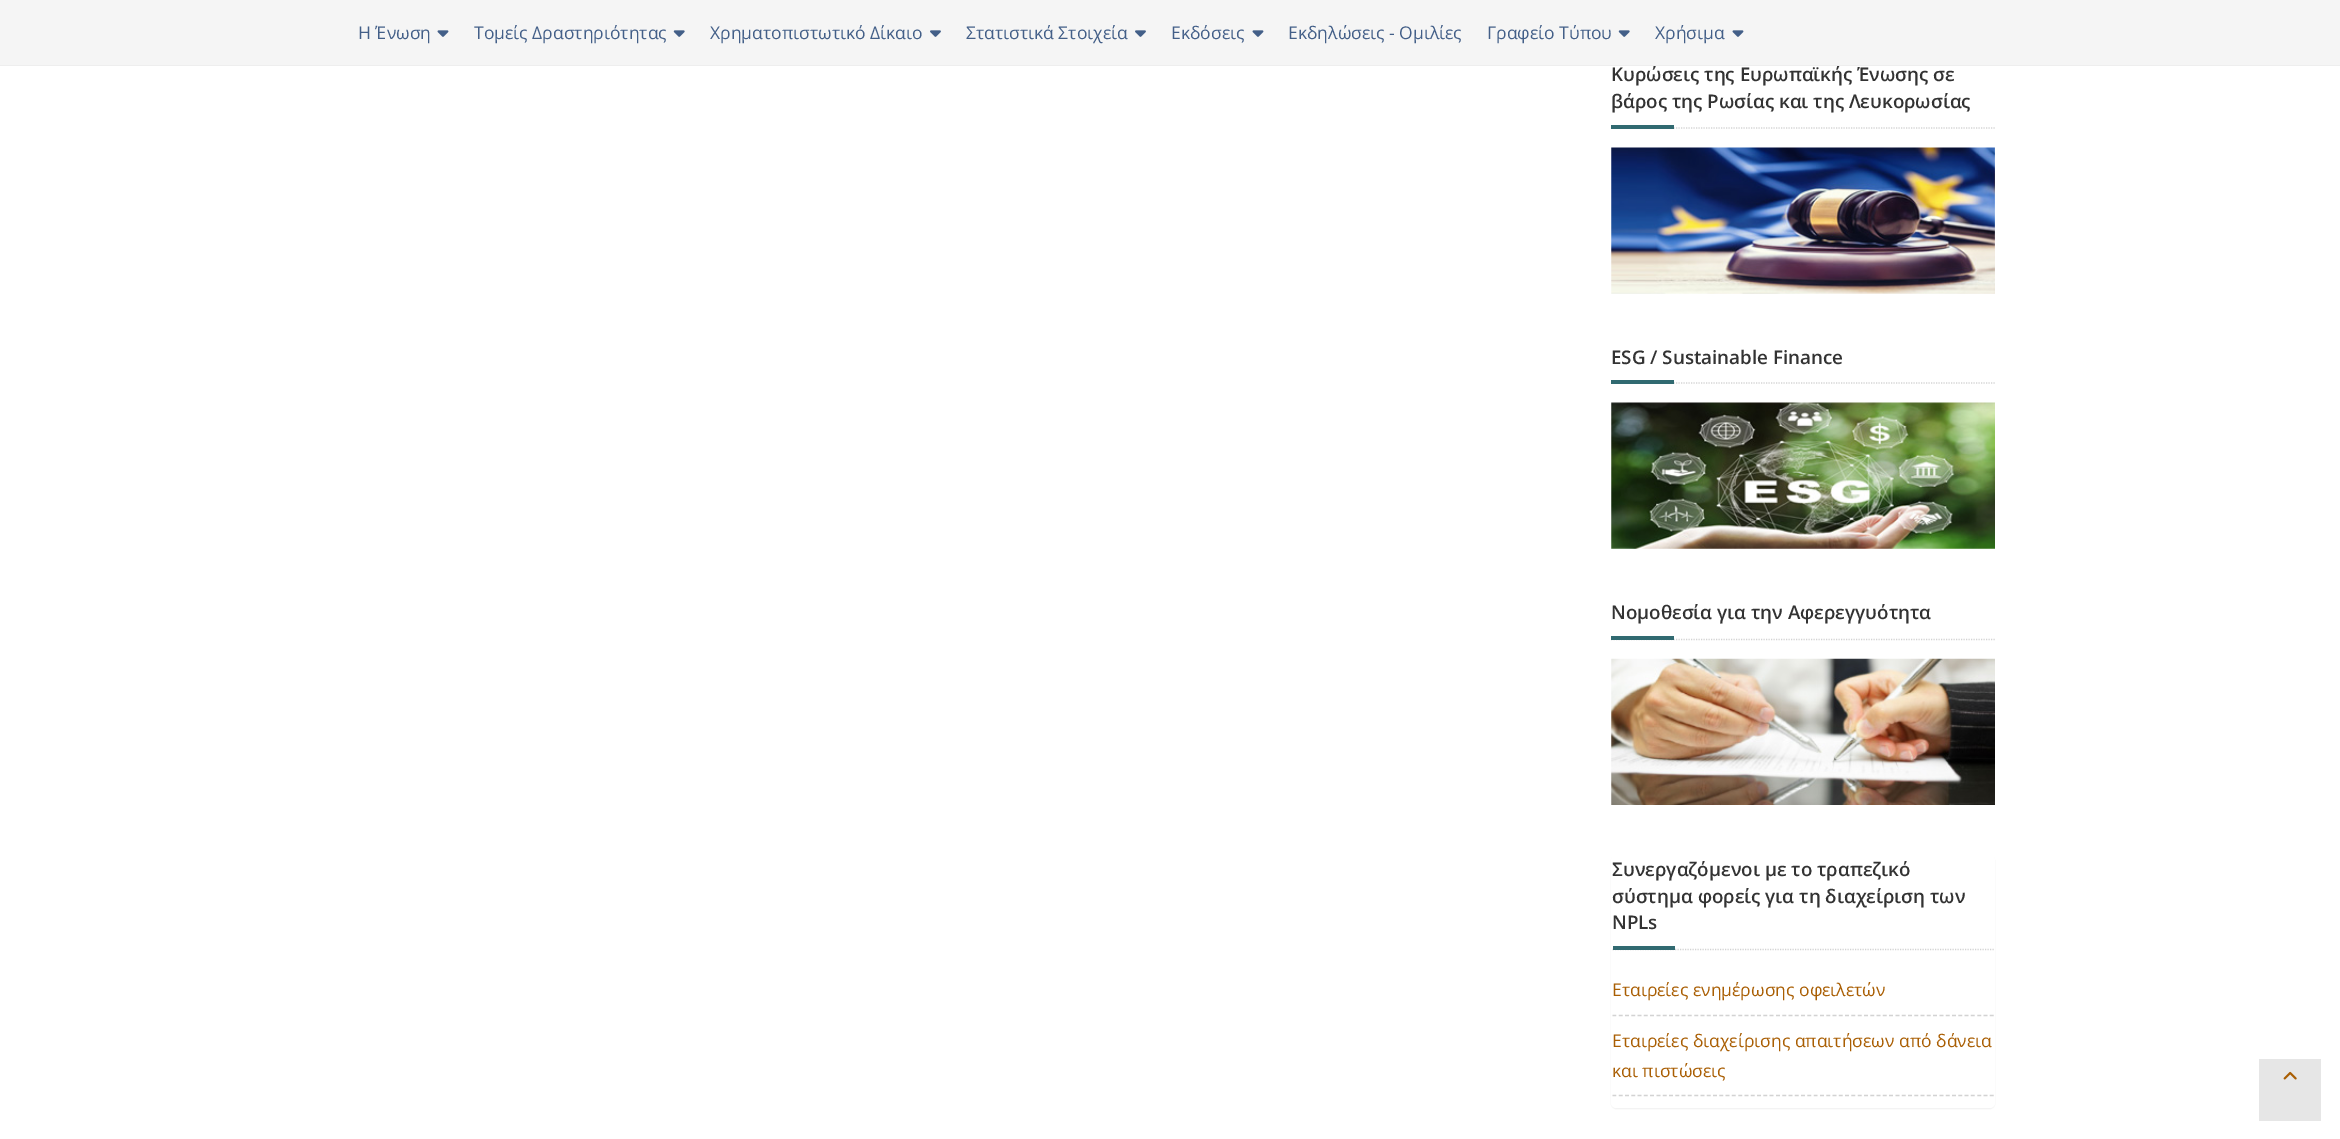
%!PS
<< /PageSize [2340 1139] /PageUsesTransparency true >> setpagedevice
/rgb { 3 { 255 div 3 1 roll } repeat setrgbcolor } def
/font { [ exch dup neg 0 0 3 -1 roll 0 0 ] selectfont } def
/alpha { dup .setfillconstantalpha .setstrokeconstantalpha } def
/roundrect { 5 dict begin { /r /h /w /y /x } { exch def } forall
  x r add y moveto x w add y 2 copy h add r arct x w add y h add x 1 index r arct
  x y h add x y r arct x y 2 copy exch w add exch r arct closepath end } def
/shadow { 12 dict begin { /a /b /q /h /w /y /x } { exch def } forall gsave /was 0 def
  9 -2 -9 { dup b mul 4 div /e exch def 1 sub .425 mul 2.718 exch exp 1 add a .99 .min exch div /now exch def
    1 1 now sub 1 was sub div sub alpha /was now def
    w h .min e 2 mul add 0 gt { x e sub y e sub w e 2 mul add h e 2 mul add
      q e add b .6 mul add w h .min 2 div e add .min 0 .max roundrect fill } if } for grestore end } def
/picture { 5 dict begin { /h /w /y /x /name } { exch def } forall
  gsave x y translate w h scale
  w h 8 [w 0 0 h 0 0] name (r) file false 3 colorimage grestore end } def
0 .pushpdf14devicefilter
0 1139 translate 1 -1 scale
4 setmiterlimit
255 255 255 rgb
0 0 2340 1139 rectfill
245 245 245 rgb
0 0 2340 65 rectfill
238 238 238 rgb
0 65 2340 1 rectfill
(img/1.rgb) 437 30 12 7 picture
(img/2.rgb) 673 30 12 7 picture
(img/3.rgb) 930 30 11 7 picture
(img/3.rgb) 1135 30 11 7 picture
(img/1.rgb) 1252 30 12 7 picture
(img/2.rgb) 1618 30 12 7 picture
(img/1.rgb) 1732 30 12 7 picture
211 211 211 rgb
1.2 setlinewidth
[1.25 1.25] 0 setdash
1611 128 moveto 1995 128 lineto stroke
49 106 113 rgb
1611 125 63 4 rectfill
(img/4.rgb) 1611 147 384 147 picture
211 211 211 rgb
1611 383 moveto 1995 383 lineto stroke
49 106 113 rgb
1611 380 63 4 rectfill
(img/5.rgb) 1611 402 384 147 picture
211 211 211 rgb
1611 639.5 moveto 1995 639.5 lineto stroke
49 106 113 rgb
1611 636 63 4 rectfill
(img/6.rgb) 1611 658 384 147 picture
0 0 0 rgb
1611 856 384 253 5 0.5 0.05 shadow
255 255 255 rgb
1611 855 384 253 5 roundrect fill
211 211 211 rgb
1612.5 949.5 moveto 1994 949.5 lineto stroke
49 106 113 rgb
1613 946 62 4 rectfill
211 211 211 rgb
[3.75 2.54] 0 setdash
1612.5 1015.5 moveto 1994 1015.5 lineto stroke
1612.5 1095.5 moveto 1994 1095.5 lineto stroke
230 230 230 rgb
2259 1059 62 62 rectfill
(img/7.rgb) 2283 1071 14 9 picture
/OpenSans-Regular 17.5 font
67 95 136 rgb
[
  [(H Ένωση) 358 39]
  [(Τομείς Δραστηριότητας) 474 39]
  [(Χρηματοπιστωτικό Δίκαιο) 710 39]
  [(Στατιστικά Στοιχεία) 966 39]
  [(Εκδόσεις) 1171 39]
  [(Εκδηλώσεις - Ομιλίες) 1288 39]
  [(Γραφείο Τύπου) 1487 39]
  [(Χρήσιμα) 1655 39]
] { aload pop moveto show } forall
/OpenSans-SemiBold 18.75 font
51 51 51 rgb
[
  [(Κυρώσεις της Ευρωπαϊκής Ένωσης σε) 1611 81]
  [(βάρος της Ρωσίας και της Λευκορωσίας) 1611 108]
  [(ESG / Sustainable Finance) 1611 364]
  [(Νομοθεσία για την Αφερεγγυότητα) 1611 619]
  [(Συνεργαζόμενοι με το τραπεζικό) 1612 876]
  [(σύστημα φορείς για τη διαχείριση των) 1612 903]
  [(NPLs) 1612 929]
] { aload pop moveto show } forall
/OpenSans-Regular 17.5 font
169 94 3 rgb
[
  [(Εταιρείες ενημέρωσης οφειλετών) 1612 996]
  [(Εταιρείες διαχείρισης απαιτήσεων από δάνεια) 1612 1047]
  [(και πιστώσεις) 1612 1077]
] { aload pop moveto show } forall
.poppdf14devicefilter showpage
